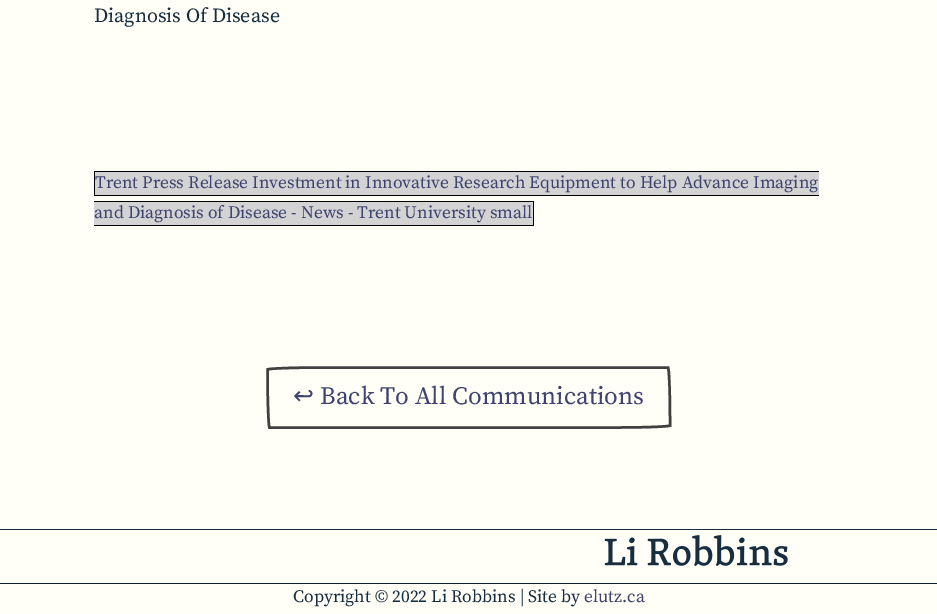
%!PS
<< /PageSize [937 614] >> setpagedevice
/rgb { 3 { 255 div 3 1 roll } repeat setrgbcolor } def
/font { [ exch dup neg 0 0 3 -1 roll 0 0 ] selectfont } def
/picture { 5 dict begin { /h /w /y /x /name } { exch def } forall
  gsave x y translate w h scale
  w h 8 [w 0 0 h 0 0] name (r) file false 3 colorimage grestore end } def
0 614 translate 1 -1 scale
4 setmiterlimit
255 254 247 rgb
0 0 937 614 rectfill
[
  [95 172 724 23 211 211 211]
  [94 171 725 1 0 0 0]
  [94 195 725 1 0 0 0]
  [94 171 1 25 0 0 0]
  [94 202 439 23 211 211 211]
  [94 201 440 1 0 0 0]
  [533 201 1 25 0 0 0]
  [94 225 440 1 0 0 0]
] { aload pop rgb rectfill } forall
65 64 62 rgb
2.5 setlinewidth
325.5 367.5 moveto 668 367.5 lineto 669 367.5 670 390.5 670 418.5 curveto 670 425.5 lineto 670 426.5 647 427.5 619 427.5 curveto 269.5 427.5 lineto 268.5 427.5 267.5 401.5 267.5 369.5 curveto 267.5 368.5 293.5 367.5 325.5 367.5 curveto closepath stroke
23 45 64 rgb
0 529 937 1 rectfill
(img/1.rgb) 604 535 184 31 picture
19 34 48 rgb
0 583 937 1 rectfill
/SourceSerifPro-Regular 20 font
23 45 64 rgb
94 22 moveto (Diagnosis Of Disease) show
/SourceSerifPro-Regular 17.5 font
63 67 111 rgb
95 188 moveto (Trent Press Release Investment in Innovative Research Equipment to Help Advance Imaging) show
94 218 moveto (and Diagnosis of Disease - News - Trent University small) show
/DejaVuSans-Regular 25 font
293 404 moveto (↩) show
/SourceSerifPro-Regular 25 font
320 404 moveto (Back To All Communications) show
/SourceSerifPro-Regular 17.5 font
23 45 64 rgb
293 602 moveto (Copyright © 2022 Li Robbins | Site by) show
63 67 111 rgb
584 602 moveto (elutz.ca) show
showpage
